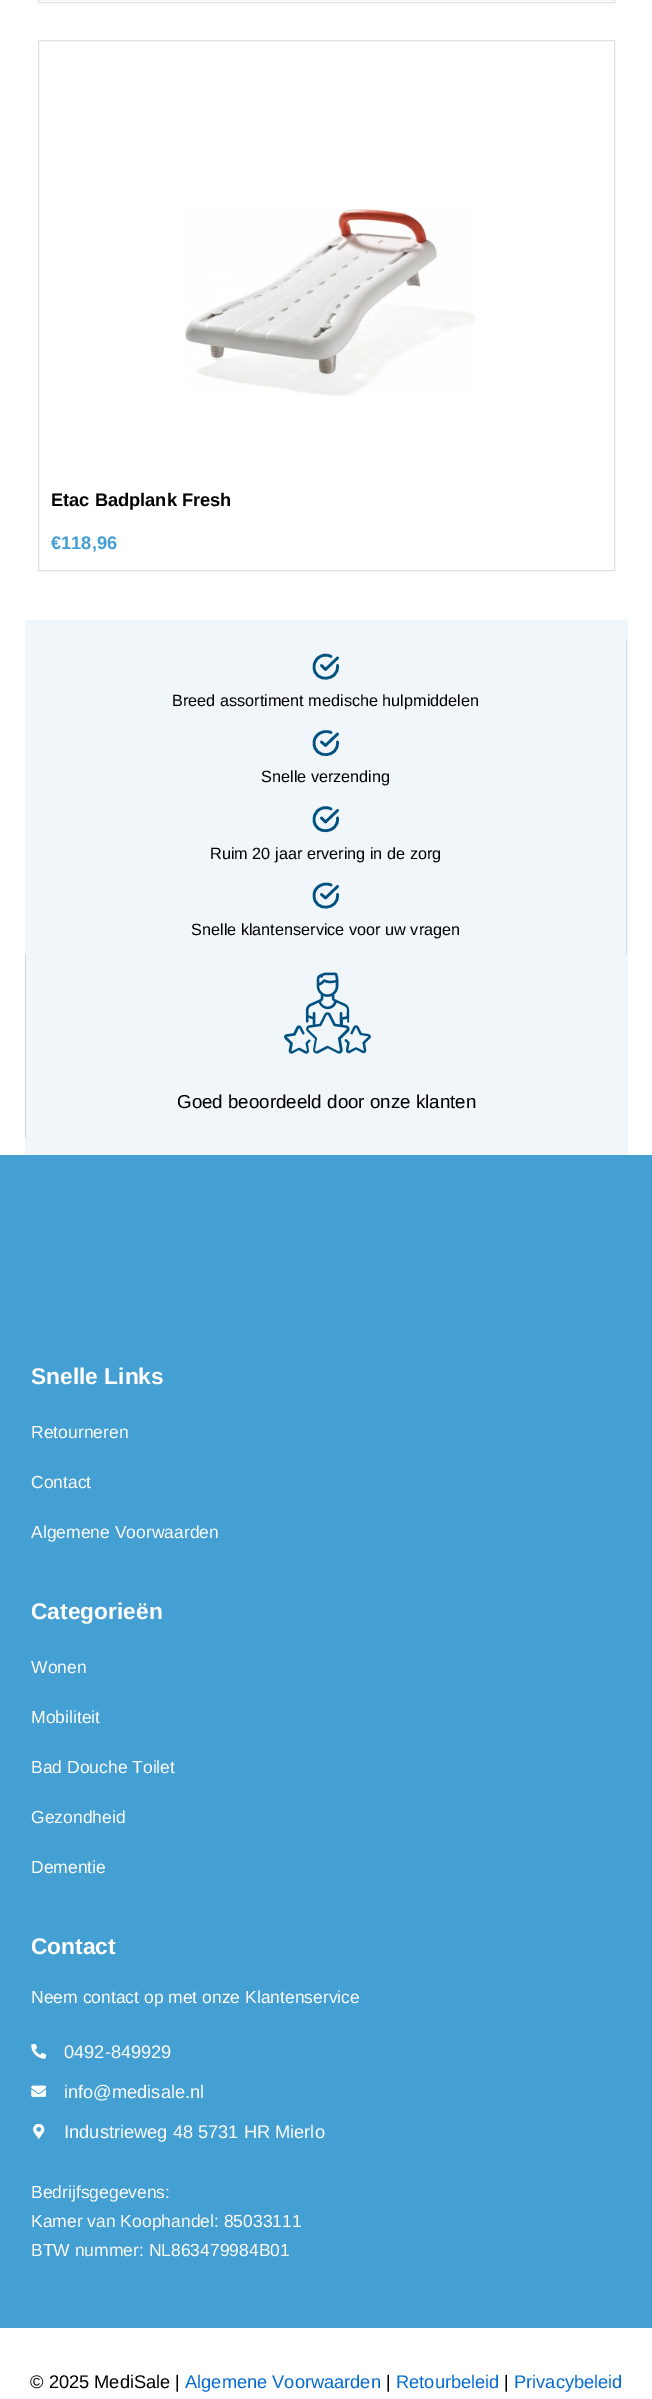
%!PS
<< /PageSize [652 2399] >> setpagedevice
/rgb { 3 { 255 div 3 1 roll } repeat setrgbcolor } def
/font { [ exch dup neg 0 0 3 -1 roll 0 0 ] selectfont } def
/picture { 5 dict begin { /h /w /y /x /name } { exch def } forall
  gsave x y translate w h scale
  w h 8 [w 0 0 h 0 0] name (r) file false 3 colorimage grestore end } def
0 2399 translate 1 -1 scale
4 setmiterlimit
255 255 255 rgb
0 0 652 2399 rectfill
222 227 232 rgb
38.5 -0.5 576 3 rectstroke
38.5 40.5 576 530 rectstroke
(img/1.rgb) 185 207 290 189 picture
241 246 251 rgb
25 620 603 535 rectfill
213 214 215 rgb
626 639 1 315 rectfill
0 81 128 rgb
2.6 setlinewidth
1 setlinecap
1 setlinejoin
331 656.5 moveto 326.5 654 321 655 317.5 658.5 curveto 315 661 314 664 314 667 curveto 314 683 339 681.5 337.5 665.5 curveto 337.5 658 moveto 325.5 669.5 lineto 321.5 665.5 lineto stroke
331 732.5 moveto 326.5 730.5 321 731.5 317.5 735 curveto 315 737 314 740 314 743 curveto 314 759.5 339 758 337.5 742 curveto 337.5 734 moveto 325.5 745.5 lineto 321.5 742 lineto stroke
331 809 moveto 326.5 806.5 321 807.5 317.5 811 curveto 315 813.5 314 816.5 314 819.5 curveto 314 835.5 339 834 337.5 818 curveto 337.5 810.5 moveto 325.5 822 lineto 321.5 818 lineto stroke
331 885 moveto 326.5 883 321 884 317.5 887.5 curveto 315 889.5 314 892.5 314 895.5 curveto 314 912 339 910.5 337.5 894.5 curveto 337.5 886.5 moveto 325.5 898 lineto 321.5 894.5 lineto stroke
213 214 215 rgb
25 954 1 184 rectfill
(img/2.rgb) 284 972 87 82 picture
68 159 211 rgb
0 1155 652 1173 rectfill
(img/3.rgb) 31 2044 15 15 picture
(img/4.rgb) 31 2085 15 12 picture
(img/5.rgb) 33 2124 12 15 picture
/LiberationSans-Bold 18.25 font
0 0 0 rgb
51 506 moveto (Etac Badplank Fresh) show
68 159 211 rgb
51 549 moveto (€118,96) show
/LiberationSans-Regular 16.25 font
0 0 0 rgb
[
  [(Breed assortiment medische hulpmiddelen) 172 706]
  [(Snelle verzending) 261 782]
  [(Ruim 20 jaar ervering in de zorg) 210 859]
  [(Snelle klantenservice voor uw vragen) 191 935]
] { aload pop moveto show } forall
/LiberationSans-Regular 18.75 font
177 1108 moveto (Goed beoordeeld door onze klanten) show
/LiberationSans-Bold 22.75 font
255 255 255 rgb
31 1384 moveto (Snelle Links) show
/LiberationSans-Regular 17.5 font
[
  [(Retourneren) 31 1438]
  [(Contact) 31 1488]
  [(Algemene Voorwaarden) 31 1538]
] { aload pop moveto show } forall
/LiberationSans-Bold 22.75 font
31 1619 moveto (Categorieën) show
/LiberationSans-Regular 17.5 font
[
  [(Wonen) 31 1673]
  [(Mobiliteit) 31 1723]
  [(Bad Douche Toilet) 31 1773]
  [(Gezondheid) 31 1823]
  [(Dementie) 31 1873]
] { aload pop moveto show } forall
/LiberationSans-Bold 22.75 font
31 1954 moveto (Contact) show
/LiberationSans-Regular 17.5 font
31 2003 moveto (Neem contact op met onze Klantenservice) show
/LiberationSans-Regular 18.25 font
[
  [(0492-849929) 64 2058]
  [(info@medisale.nl) 64 2098]
  [(Industrieweg 48 5731 HR Mierlo) 64 2138]
] { aload pop moveto show } forall
/LiberationSans-Regular 17.5 font
[
  [(Bedrijfsgegevens:) 31 2198]
  [(Kamer van Koophandel: 85033111) 31 2227]
  [(BTW nummer: NL863479984B01) 31 2256]
] { aload pop moveto show } forall
/LiberationSans-Regular 18.25 font
0 0 0 rgb
30 2388 moveto (© 2025 MediSale |) show
4 107 210 rgb
185 2388 moveto (Algemene Voorwaarden) show
0 0 0 rgb
386 2388 moveto (|) show
4 107 210 rgb
396 2388 moveto (Retourbeleid) show
0 0 0 rgb
504 2388 moveto (|) show
4 107 210 rgb
514 2388 moveto (Privacybeleid) show
showpage
